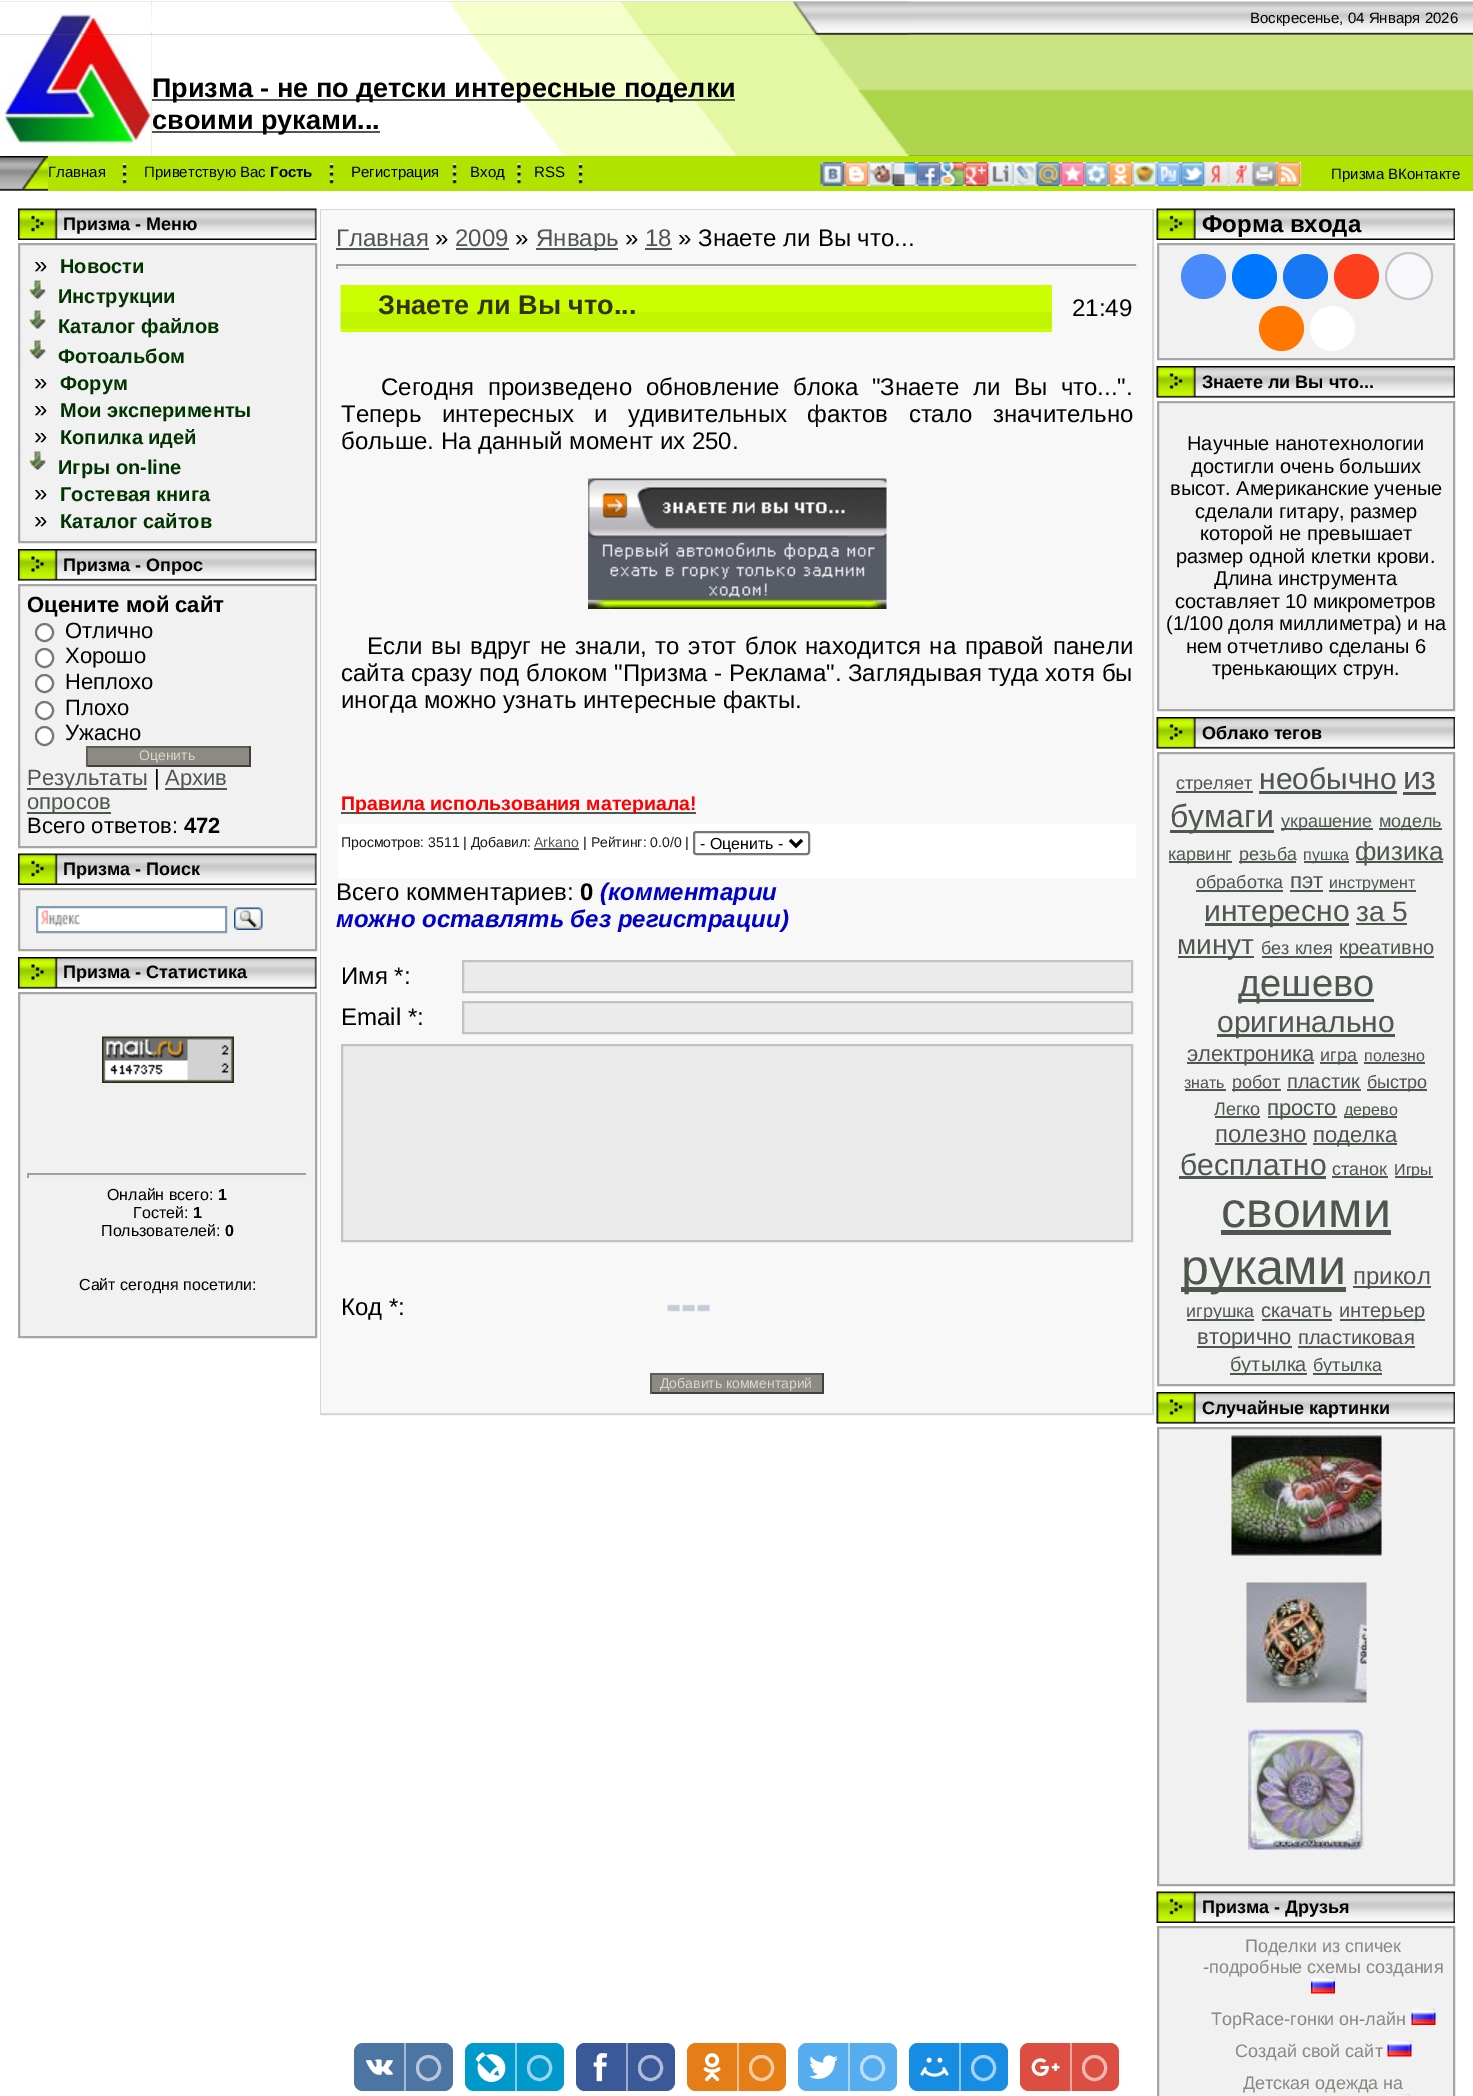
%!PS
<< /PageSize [1473 2096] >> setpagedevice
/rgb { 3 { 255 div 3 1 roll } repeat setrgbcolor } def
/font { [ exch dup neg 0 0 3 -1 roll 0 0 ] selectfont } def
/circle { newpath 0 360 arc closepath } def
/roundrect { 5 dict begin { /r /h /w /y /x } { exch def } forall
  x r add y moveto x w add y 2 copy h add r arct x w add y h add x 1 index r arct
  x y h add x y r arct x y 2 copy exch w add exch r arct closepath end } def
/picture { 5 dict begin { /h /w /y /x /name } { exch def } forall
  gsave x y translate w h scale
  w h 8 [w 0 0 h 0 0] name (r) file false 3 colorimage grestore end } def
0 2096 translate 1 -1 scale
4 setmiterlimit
255 255 255 rgb
0 0 1473 2096 rectfill
(img/1.rgb) 0 1 1473 190 picture
(img/5.rgb) 151 34 758 122 picture
(img/2.rgb) 0 1 152 34 picture
(img/3.rgb) 151 1 758 34 picture
(img/4.rgb) 0 34 152 122 picture
77 87 77 rgb
152 99 583 2 rectfill
152 131 228 2 rectfill
(img/6.rgb) 0 156 48 35 picture
176 227 0 rgb
48 156 1425 35 rectfill
(img/7.rgb) 122 163 5 21 picture
(img/7.rgb) 329 163 5 21 picture
(img/7.rgb) 452 163 5 21 picture
(img/8.rgb) 517 163 4 21 picture
(img/7.rgb) 578 163 5 21 picture
255 255 255 rgb
821 162 480 24 rectfill
(img/9.rgb) 820 162 25 24 picture
(img/10.rgb) 844 162 25 24 picture
(img/11.rgb) 868 162 25 24 picture
(img/12.rgb) 892 162 25 24 picture
(img/13.rgb) 916 162 25 24 picture
(img/14.rgb) 940 162 25 24 picture
(img/15.rgb) 964 162 25 24 picture
(img/16.rgb) 988 162 25 24 picture
(img/17.rgb) 1012 162 25 24 picture
(img/18.rgb) 1036 162 25 24 picture
(img/19.rgb) 1060 162 25 24 picture
(img/20.rgb) 1084 162 25 24 picture
(img/21.rgb) 1108 162 25 24 picture
(img/22.rgb) 1132 162 25 24 picture
(img/23.rgb) 1156 162 25 24 picture
(img/24.rgb) 1180 162 25 24 picture
(img/25.rgb) 1204 162 25 24 picture
(img/26.rgb) 1228 162 25 24 picture
(img/27.rgb) 1252 162 25 24 picture
(img/28.rgb) 1276 162 25 24 picture
212 223 247 rgb
316 209 1 31 rectfill
(img/29.rgb) 18 208 299 32 picture
241 241 241 rgb
19 244 moveto 316 244 lineto 316 542 lineto 19 542 lineto closepath gsave fill grestore
167 166 166 rgb
2 setlinewidth
stroke
(img/30.rgb) 29 280 17 19 picture
(img/30.rgb) 29 310 17 19 picture
(img/30.rgb) 29 340 17 19 picture
(img/30.rgb) 29 451 17 19 picture
212 223 247 rgb
18 549 299 32 rectfill
(img/31.rgb) 18 549 299 32 picture
241 241 241 rgb
19 585 moveto 316 585 lineto 316 847 lineto 19 847 lineto closepath gsave fill grestore
167 166 166 rgb
stroke
255 255 255 rgb
44.5 632.5 8.5 circle gsave fill grestore
118 118 118 rgb
stroke
255 255 255 rgb
36 649 17 18 8.5 roundrect gsave fill grestore
118 118 118 rgb
stroke
255 255 255 rgb
44.5 683.5 8.5 circle gsave fill grestore
118 118 118 rgb
stroke
255 255 255 rgb
44.5 710.5 8.5 circle gsave fill grestore
118 118 118 rgb
stroke
255 255 255 rgb
36 727 17 18 8.5 roundrect gsave fill grestore
118 118 118 rgb
stroke
[
  [88 748 161 17 141 138 131]
  [86 746 165 2 97 94 88]
  [249 746 2 21 65 63 59]
  [86 765 165 2 65 63 59]
  [86 746 2 21 97 94 88]
  [27 788 120 2 77 87 77]
  [165 788 62 2 77 87 77]
  [27 812 84 2 77 87 77]
  [316 854 1 31 212 223 247]
] { aload pop rgb rectfill } forall
(img/29.rgb) 18 853 299 32 picture
241 241 241 rgb
19 889 moveto 316 889 lineto 316 950 lineto 19 950 lineto closepath gsave fill grestore
167 166 166 rgb
stroke
255 255 255 rgb
38 908 187 23 rectfill
(img/32.rgb) 40 910 40 17 picture
127 157 185 rgb
37 907 189 25 rectstroke
(img/33.rgb) 234 907 29 23 picture
212 223 247 rgb
18 957 299 32 rectfill
(img/31.rgb) 18 957 299 32 picture
241 241 241 rgb
19 993 moveto 316 993 lineto 316 1337 lineto 19 1337 lineto closepath gsave fill grestore
167 166 166 rgb
stroke
(img/34.rgb) 102 1036 132 47 picture
[
  [27 1173 281 2 159 159 159]
  [306 1173 2 5 238 238 238]
  [27 1176 281 2 238 238 238]
  [27 1173 2 5 159 159 159]
] { aload pop rgb rectfill } forall
215 215 215 rgb
321 210 832 1204 rectstroke
[
  [321 210 831 1203 248 248 248]
  [336 248 93 2 77 87 77]
  [456 248 53 2 77 87 77]
  [536 248 82 2 77 87 77]
  [645 248 27 2 77 87 77]
  [336 264 801 2 159 159 159]
  [1136 264 2 5 238 238 238]
  [336 267 801 2 238 238 238]
  [336 264 2 5 159 159 159]
  [341 285 711 47 203 254 0]
] { aload pop rgb rectfill } forall
(img/35.rgb) 340 285 712 47 picture
(img/36.rgb) 588 478 299 131 picture
[
  [341 812 355 2 77 87 77]
  [338 824 798 54 255 255 255]
  [534 848 45 2 77 87 77]
] { aload pop rgb rectfill } forall
118 118 118 rgb
694 832 115 22 2 roundrect stroke
0 0 0 rgb
3 setlinewidth
790 840 moveto 796 846 lineto 802 840 lineto stroke
235 235 235 rgb
463 961 moveto 1132 961 lineto 1132 992 lineto 463 992 lineto closepath gsave fill grestore
194 194 194 rgb
2 setlinewidth
stroke
235 235 235 rgb
463 1002 moveto 1132 1002 lineto 1132 1033 lineto 463 1033 lineto closepath gsave fill grestore
194 194 194 rgb
stroke
235 235 235 rgb
342 1045 moveto 1132 1045 lineto 1132 1241 lineto 342 1241 lineto closepath gsave fill grestore
194 194 194 rgb
stroke
(img/37.rgb) 667 1304 43 8 picture
[
  [652 1375 170 17 141 138 131]
  [650 1373 174 2 97 94 88]
  [822 1373 2 21 65 63 59]
  [650 1392 174 2 65 63 59]
  [650 1373 2 21 97 94 88]
] { aload pop rgb rectfill } forall
(img/38.rgb) 1156 208 299 32 picture
241 241 241 rgb
1158 244 moveto 1454 244 lineto 1454 359 lineto 1158 359 lineto closepath gsave fill grestore
167 166 166 rgb
stroke
73 139 250 rgb
1203.5 276.5 22.5 circle fill
0 119 255 rgb
1254.5 276.5 22.5 circle fill
24 119 242 rgb
1305.5 276.5 22.5 circle fill
252 63 29 rgb
1356.5 276.5 22.5 circle fill
248 248 252 rgb
1409 276 23 circle gsave fill grestore
196 196 196 rgb
stroke
255 119 0 rgb
1281.5 328.5 22.5 circle fill
255 255 255 rgb
1332.5 328.5 22.5 circle fill
212 223 247 rgb
1157 397 298 1 rectfill
(img/39.rgb) 1156 366 299 32 picture
241 241 241 rgb
1158 402 moveto 1454 402 lineto 1454 710 lineto 1158 710 lineto closepath gsave fill grestore
167 166 166 rgb
stroke
212 223 247 rgb
1157 748 298 1 rectfill
(img/39.rgb) 1156 717 299 32 picture
241 241 241 rgb
1158 753 moveto 1454 753 lineto 1454 1385 lineto 1158 1385 lineto closepath gsave fill grestore
167 166 166 rgb
stroke
[
  [1176 791 77 2 77 87 77]
  [1259 791 138 3 77 87 77]
  [1403 792 33 3 77 87 77]
  [1170 830 104 3 77 87 77]
  [1281 828 92 2 77 87 77]
  [1379 828 63 2 77 87 77]
  [1169 861 63 2 77 87 77]
  [1239 861 57 2 77 87 77]
  [1304 861 45 2 77 87 77]
  [1356 861 87 2 77 87 77]
  [1196 890 87 2 77 87 77]
  [1290 890 33 2 77 87 77]
  [1329 890 87 2 77 87 77]
  [1205 923 144 3 77 87 77]
  [1356 923 51 2 77 87 77]
  [1178 956 76 2 77 87 77]
  [1262 956 70 2 77 87 77]
  [1340 956 94 2 77 87 77]
  [1238 999 136 3 77 87 77]
  [1217 1034 178 3 77 87 77]
  [1187 1062 127 2 77 87 77]
  [1320 1062 38 2 77 87 77]
  [1364 1062 61 2 77 87 77]
  [1185 1089 41 2 77 87 77]
  [1232 1089 49 2 77 87 77]
  [1287 1089 74 2 77 87 77]
  [1367 1089 60 2 77 87 77]
  [1215 1116 45 2 77 87 77]
  [1268 1116 69 2 77 87 77]
  [1344 1116 53 2 77 87 77]
  [1215 1143 92 2 77 87 77]
  [1313 1143 84 2 77 87 77]
  [1179 1176 147 3 77 87 77]
  [1332 1176 56 2 77 87 77]
  [1395 1176 38 2 77 87 77]
  [1221 1230 170 5 77 87 77]
  [1181 1287 165 5 77 87 77]
  [1353 1286 78 2 77 87 77]
  [1187 1319 67 2 77 87 77]
  [1262 1319 70 2 77 87 77]
  [1340 1319 85 2 77 87 77]
  [1197 1346 95 2 77 87 77]
  [1298 1346 117 2 77 87 77]
  [1230 1373 77 2 77 87 77]
  [1313 1373 69 2 77 87 77]
  [1157 1423 298 1 212 223 247]
] { aload pop rgb rectfill } forall
(img/39.rgb) 1156 1392 299 32 picture
241 241 241 rgb
1158 1428 moveto 1454 1428 lineto 1454 1885 lineto 1158 1885 lineto closepath gsave fill grestore
167 166 166 rgb
stroke
(img/40.rgb) 1231 1435 151 121 picture
(img/41.rgb) 1246 1582 121 121 picture
(img/42.rgb) 1248 1729 116 121 picture
(img/38.rgb) 1156 1891 299 32 picture
241 241 241 rgb
1158 1927 moveto 1454 1927 lineto 1454 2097 lineto 1158 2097 lineto closepath gsave fill grestore
167 166 166 rgb
stroke
(img/43.rgb) 1311 1977 24 17 picture
(img/44.rgb) 1411 2008 25 17 picture
(img/45.rgb) 1387 2040 25 17 picture
(img/46.rgb) 1386 2094 24 2 picture
77 117 163 rgb
354 2043 99 48 9 roundrect fill
(img/47.rgb) 366 2059 27 16 picture
166 186 209 rgb
404 2043 2 48 rectfill
184 200 218 rgb
3 setlinewidth
417.5 2056.5 22 23 11 roundrect stroke
0 153 204 rgb
465 2043 99 48 9 roundrect fill
(img/48.rgb) 475 2052 31 30 picture
128 204 230 rgb
515 2043 2 48 rectfill
153 214 235 rgb
528.5 2056.5 22 23 11 roundrect stroke
59 89 152 rgb
576 2043 99 48 9 roundrect fill
(img/49.rgb) 593 2053 15 29 picture
157 172 204 rgb
626 2043 2 48 rectfill
177 189 214 rgb
639.5 2056.5 22 23 11 roundrect stroke
230 126 23 rgb
687 2043 99 48 9 roundrect fill
(img/50.rgb) 703 2053 18 29 picture
243 191 139 rgb
737 2043 2 48 rectfill
245 203 162 rgb
750.5 2056.5 22 23 11 roundrect stroke
85 172 238 rgb
798 2043 99 48 9 roundrect fill
(img/51.rgb) 809 2055 29 24 picture
170 214 247 rgb
848 2043 2 48 rectfill
187 222 248 rgb
861.5 2056.5 22 23 11 roundrect stroke
22 141 226 rgb
909 2043 99 48 9 roundrect fill
(img/52.rgb) 920 2057 29 20 picture
139 198 241 rgb
959 2043 2 48 rectfill
162 209 243 rgb
972.5 2056.5 22 23 11 roundrect stroke
220 78 65 rgb
1020 2043 99 48 9 roundrect fill
(img/53.rgb) 1031 2058 29 18 picture
238 167 160 rgb
1070 2043 2 48 rectfill
241 184 179 rgb
1083.5 2056.5 22 23 11 roundrect stroke
/LiberationSans-Regular 15 font
0 0 0 rgb
1250 23 moveto (Воскресенье, 04 Января 2026) show
/LiberationSans-Bold 27 font
152 97 moveto (Призма - не по детски интересные поделки) show
152 129 moveto (своими руками...) show
/LiberationSans-Regular 15 font
48 177 moveto (Главная) show
144 177 moveto (Приветствую Вас) show
/LiberationSans-Bold 15 font
270 177 moveto (Гость) show
/LiberationSans-Regular 15 font
[
  [(Регистрация) 351 177]
  [(Вход) 470 177]
  [(RSS) 534 177]
  [(Призма ВКонтакте) 1331 179]
] { aload pop moveto show } forall
/LiberationSans-Bold 18 font
63 230 moveto (Призма - Меню) show
/LiberationSans-Regular 24 font
34 273 moveto (») show
/LiberationSans-Bold 20 font
0 51 0 rgb
[
  [(Новости) 60 273]
  [(Инструкции) 58 303]
  [(Каталог файлов) 58 333]
  [(Фотоальбом) 58 363]
] { aload pop moveto show } forall
/LiberationSans-Regular 24 font
0 0 0 rgb
34 390 moveto (») show
/LiberationSans-Bold 20 font
0 51 0 rgb
60 390 moveto (Форум) show
/LiberationSans-Regular 24 font
0 0 0 rgb
34 417 moveto (») show
/LiberationSans-Bold 20 font
0 51 0 rgb
60 417 moveto (Мои эксперименты) show
/LiberationSans-Regular 24 font
0 0 0 rgb
34 444 moveto (») show
/LiberationSans-Bold 20 font
0 51 0 rgb
60 444 moveto (Копилка идей) show
58 474 moveto (Игры on-line) show
/LiberationSans-Regular 24 font
0 0 0 rgb
34 501 moveto (») show
/LiberationSans-Bold 20 font
0 51 0 rgb
60 501 moveto (Гостевая книга) show
/LiberationSans-Regular 24 font
0 0 0 rgb
34 528 moveto (») show
/LiberationSans-Bold 20 font
0 51 0 rgb
60 528 moveto (Каталог сайтов) show
/LiberationSans-Bold 18 font
0 0 0 rgb
63 571 moveto (Призма - Опрос) show
/LiberationSans-Bold 22 font
27 612 moveto (Оцените мой сайт) show
/LiberationSans-Regular 22 font
[
  [(Отлично) 65 638]
  [(Хорошо) 65 663]
  [(Неплохо) 65 689]
  [(Плохо) 65 715]
  [(Ужасно) 65 740]
] { aload pop moveto show } forall
/LiberationSans-Regular 14 font
218 215 204 rgb
139 760 moveto (Оценить) show
/LiberationSans-Regular 22 font
77 87 77 rgb
27 785 moveto (Результаты) show
0 0 0 rgb
154 785 moveto (|) show
77 87 77 rgb
165 785 moveto (Архив) show
27 809 moveto (опросов) show
0 0 0 rgb
27 833 moveto (Всего ответов:) show
/LiberationSans-Bold 22 font
184 833 moveto (472) show
/LiberationSans-Bold 18 font
63 875 moveto (Призма - Поиск) show
63 978 moveto (Призма - Статистика) show
/LiberationSans-Regular 16 font
107 1200 moveto (Онлайн всего:) show
/LiberationSans-Bold 16 font
218 1200 moveto (1) show
/LiberationSans-Regular 16 font
133 1218 moveto (Гостей:) show
/LiberationSans-Bold 16 font
193 1218 moveto (1) show
/LiberationSans-Regular 16 font
101 1236 moveto (Пользователей:) show
/LiberationSans-Bold 16 font
225 1236 moveto (0) show
/LiberationSans-Regular 16 font
79 1290 moveto (Сайт сегодня посетили:) show
/LiberationSans-Regular 24 font
77 87 77 rgb
336 246 moveto (Главная) show
0 0 0 rgb
435 246 moveto (») show
77 87 77 rgb
455 246 moveto (2009) show
0 0 0 rgb
515 246 moveto (») show
77 87 77 rgb
536 246 moveto (Январь) show
0 0 0 rgb
625 246 moveto (») show
77 87 77 rgb
645 246 moveto (18) show
0 0 0 rgb
678 246 moveto (» Знаете ли Вы что...) show
/LiberationSans-Bold 27 font
51 51 0 rgb
378 314 moveto (Знаете ли Вы что...) show
/LiberationSans-Regular 24 font
0 0 0 rgb
1072 316 moveto (21:49) show
381 395 moveto 7 0 32 (Сегодня произведено обновление блока "Знаете ли Вы что...".) widthshow
341 422 moveto 13.75 0 32 (Теперь интересных и удивительных фактов стало значительно) widthshow
341 449 moveto (больше. На данный момент их 250.) show
367 654 moveto 2.1 0 32 (Если вы вдруг не знали, то этот блок находится на правой панели) widthshow
341 681 moveto (сайта сразу под блоком "Призма - Реклама". Заглядывая туда хотя бы) show
341 708 moveto (иногда можно узнать интересные факты.) show
/LiberationSans-Bold 19.5 font
255 0 0 rgb
341 810 moveto (Правила использования материала!) show
/LiberationSans-Regular 14 font
26 26 26 rgb
341 847 moveto (Просмотров: 3511 | Добавил:) show
77 87 77 rgb
534 847 moveto (Arkano) show
26 26 26 rgb
583 847 moveto (| Рейтинг: 0.0/0 |) show
/LiberationSans-Regular 16 font
0 0 0 rgb
700 849 moveto (- Оценить -) show
/LiberationSans-Regular 24 font
336 900 moveto (Всего комментариев:) show
/LiberationSans-Bold 24 font
580 900 moveto (0) show
/LiberationSans-BoldItalic 24 font
0 0 205 rgb
600 900 moveto (\(комментарии) show
336 927 moveto (можно оставлять без регистрации\)) show
/LiberationSans-Regular 24 font
0 0 0 rgb
[
  [(Имя *:) 341 984]
  [(Email *:) 341 1025]
  [(Код *:) 341 1315]
] { aload pop moveto show } forall
/LiberationSans-Regular 14 font
218 215 204 rgb
660 1388 moveto (Добавить комментарий) show
/LiberationSans-Bold 24 font
0 0 0 rgb
1202 232 moveto (Форма входа) show
/LiberationSans-Bold 18 font
1202 388 moveto (Знаете ли Вы что...) show
/LiberationSans-Regular 20 font
[
  [(Научные нанотехнологии) 1187 450]
  [(достигли очень больших) 1191 473]
  [(высот. Американские ученые) 1170 495]
  [(сделали гитару, размер) 1195 518]
  [(которой не превышает) 1200 540]
  [(размер одной клетки крови.) 1176 563]
  [(Длина инструмента) 1214 585]
  [(составляет 10 микрометров) 1175 608]
  [(\(1/100 доля миллиметра\) и на) 1166 630]
  [(нем отчетливо сделаны 6) 1186 653]
  [(тренькающих струн.) 1212 675]
] { aload pop moveto show } forall
/LiberationSans-Bold 18 font
1202 739 moveto (Облако тегов) show
/LiberationSans-Regular 18 font
77 87 77 rgb
1176 789 moveto (стреляет) show
/LiberationSans-Regular 30 font
1259 789 moveto (необычно) show
/LiberationSans-Regular 32 font
1403 789 moveto (из) show
1170 827 moveto (бумаги) show
/LiberationSans-Regular 18 font
[
  [(украшение) 1281 827]
  [(модель) 1379 827]
  [(карвинг) 1168 860]
  [(резьба) 1239 860]
] { aload pop moveto show } forall
/LiberationSans-Regular 16 font
1303 860 moveto (пушка) show
/LiberationSans-Regular 26 font
1355 860 moveto (физика) show
/LiberationSans-Regular 18 font
1196 888 moveto (обработка) show
/LiberationSans-Regular 22 font
1290 888 moveto (пэт) show
/LiberationSans-Regular 16 font
1329 888 moveto (инструмент) show
/LiberationSans-Regular 30 font
1204 921 moveto (интересно) show
/LiberationSans-Regular 28 font
1356 921 moveto (за 5) show
1177 954 moveto (минут) show
/LiberationSans-Regular 18 font
1261 954 moveto (без клея) show
/LiberationSans-Regular 20 font
1339 954 moveto (креативно) show
/LiberationSans-Regular 38 font
1238 996 moveto (дешево) show
/LiberationSans-Regular 30 font
1217 1032 moveto (оригинально) show
/LiberationSans-Regular 22 font
1187 1061 moveto (электроника) show
/LiberationSans-Regular 18 font
1320 1061 moveto (игра) show
/LiberationSans-Regular 16 font
1364 1061 moveto (полезно) show
1184 1088 moveto (знать) show
/LiberationSans-Regular 18 font
1232 1088 moveto (робот) show
/LiberationSans-Regular 20 font
1287 1088 moveto (пластик) show
/LiberationSans-Regular 18 font
1367 1088 moveto (быстро) show
1214 1115 moveto (Легко) show
/LiberationSans-Regular 22 font
1267 1115 moveto (просто) show
/LiberationSans-Regular 16 font
1344 1115 moveto (дерево) show
/LiberationSans-Regular 24 font
1215 1142 moveto (полезно) show
/LiberationSans-Regular 22 font
1313 1142 moveto (поделка) show
/LiberationSans-Regular 30 font
1180 1175 moveto (бесплатно) show
/LiberationSans-Regular 18 font
1332 1175 moveto (станок) show
/LiberationSans-Regular 16 font
1394 1175 moveto (Игры) show
/LiberationSans-Regular 50 font
1221 1227 moveto (своими) show
1181 1284 moveto (руками) show
/LiberationSans-Regular 24 font
1353 1284 moveto (прикол) show
/LiberationSans-Regular 18 font
1186 1317 moveto (игрушка) show
/LiberationSans-Regular 20 font
1261 1317 moveto (скачать) show
1339 1317 moveto (интерьер) show
/LiberationSans-Regular 22 font
1197 1344 moveto (вторично) show
/LiberationSans-Regular 20 font
1298 1344 moveto (пластиковая) show
1230 1371 moveto (бутылка) show
/LiberationSans-Regular 18 font
1313 1371 moveto (бутылка) show
/LiberationSans-Bold 18 font
0 0 0 rgb
1202 1414 moveto (Случайные картинки) show
1202 1913 moveto (Призма - Друзья) show
/LiberationSans-Regular 18 font
139 136 129 rgb
[
  [(Поделки из спичек) 1245 1952]
  [(-подробные схемы создания) 1203 1973]
  [(TopRace-гонки он-лайн) 1211 2025]
  [(Создай свой сайт) 1235 2057]
  [(Детская одежда на) 1243 2089]
] { aload pop moveto show } forall
showpage
